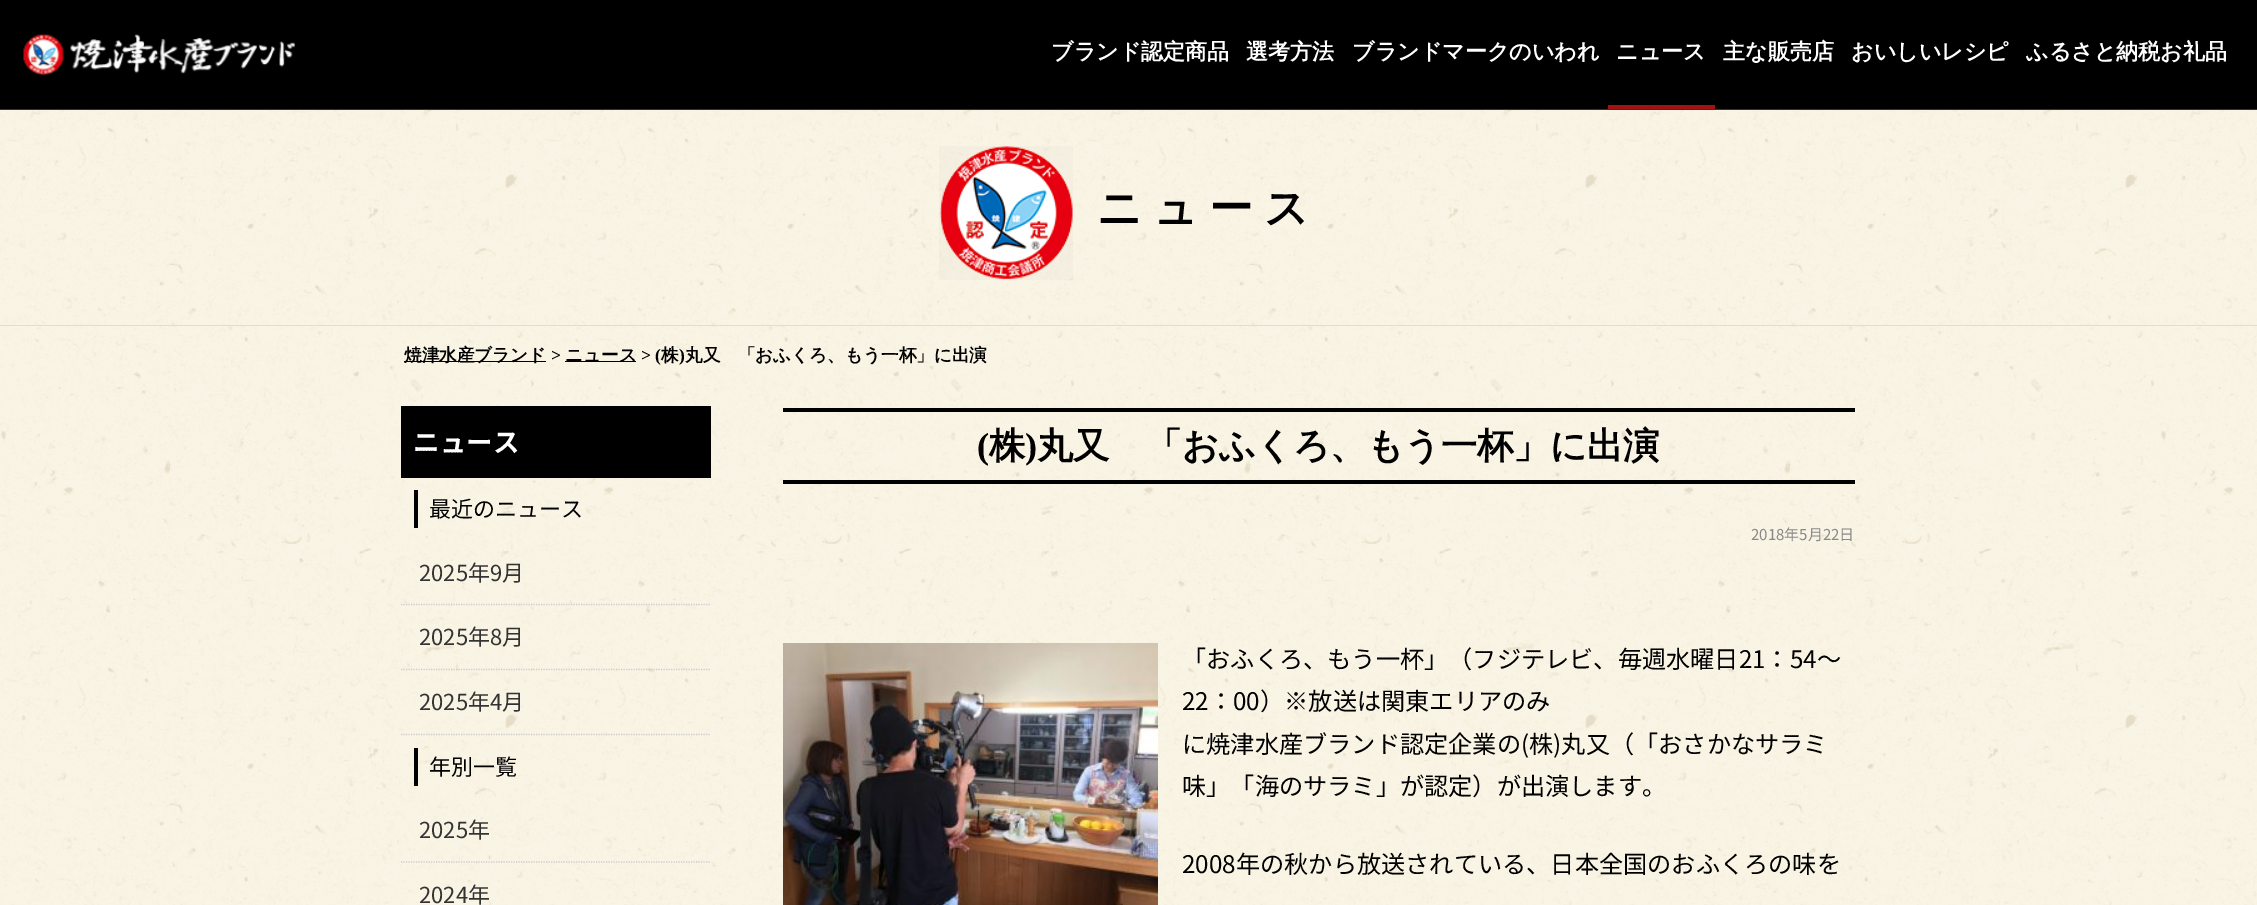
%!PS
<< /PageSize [2257 905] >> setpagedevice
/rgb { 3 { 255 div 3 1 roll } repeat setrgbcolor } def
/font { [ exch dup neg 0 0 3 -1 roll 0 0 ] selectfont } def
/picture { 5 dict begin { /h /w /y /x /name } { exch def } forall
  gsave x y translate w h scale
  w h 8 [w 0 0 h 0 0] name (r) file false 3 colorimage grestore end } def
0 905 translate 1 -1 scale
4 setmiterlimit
249 245 229 rgb
0 0 2257 905 rectfill
(img/1.rgb) 0 110 2257 795 picture
0 0 0 rgb
0 0 2257 109 rectfill
51 51 51 rgb
0 109 2257 1 rectfill
(img/2.rgb) 23 34 272 42 picture
165 17 17 rgb
1608 105 107 4 rectfill
228 221 201 rgb
0 325 2257 1 rectfill
(img/3.rgb) 939 146 134 134 picture
[
  [404 361 142 1 1 1 1]
  [565 361 71 1 1 1 1]
  [401 406 310 72 0 0 0]
  [414 490 4 38 0 0 0]
] { aload pop rgb rectfill } forall
204 204 204 rgb
1.2 setlinewidth
[1.25 1.25] 0 setdash
401 604.5 moveto 711 604.5 lineto stroke
401 669.5 moveto 711 669.5 lineto stroke
401 734.5 moveto 711 734.5 lineto stroke
0 0 0 rgb
414 748 4 38 rectfill
204 204 204 rgb
401 862 moveto 711 862 lineto stroke
0 0 0 rgb
783 408 1072 4 rectfill
783 480 1072 4 rectfill
(img/4.rgb) 783 643 375 262 picture
/WenQuanYiZenHei-Bold 22 font
255 255 255 rgb
[
  [(ブランド認定商品) 1051 59]
  [(選考方法) 1246 59]
  [(ブランドマークのいわれ) 1352 59]
  [(ニュース) 1616 59]
  [(主な販売店) 1723 59]
  [(おいしいレシピ) 1851 59]
  [(ふるさと納税お礼品) 2026 59]
] { aload pop moveto show } forall
/WenQuanYiZenHei-Bold 44 font
0 0 0 rgb
1097 223 moveto 11 0 (ニュース) ashow
/WenQuanYiZenHei-Bold 17.6 font
404 361 moveto (焼津水産ブランド) show
/LiberationSerif-Bold 17.6 font
551 361 moveto (>) show
/WenQuanYiZenHei-Bold 17.6 font
565 361 moveto (ニュース) show
/LiberationSerif-Bold 17.6 font
641 361 moveto (> \() show
/WenQuanYiZenHei-Bold 17.6 font
661 361 moveto (株) show
/LiberationSerif-Bold 17.6 font
679 361 moveto (\)) show
/WenQuanYiZenHei-Bold 17.6 font
685 361 moveto (丸又　「おふくろ、もう一杯」に出演) show
/NotoSansJP-Bold 26.5 font
255 255 255 rgb
413 452 moveto (ニュース) show
/NotoSansJP-Regular 22 font
0 0 0 rgb
429 517 moveto (最近のニュース) show
51 51 51 rgb
[
  [(2025年9月) 419 581]
  [(2025年8月) 419 645]
  [(2025年4月) 419 710]
] { aload pop moveto show } forall
0 0 0 rgb
429 775 moveto (年別一覧) show
51 51 51 rgb
419 838 moveto (2025年) show
419 903 moveto (2024年) show
/LiberationSerif-Bold 36.25 font
0 0 0 rgb
977 458 moveto (\() show
/WenQuanYiZenHei-Bold 36.25 font
989 458 moveto (株) show
/LiberationSerif-Bold 36.25 font
1025 458 moveto (\)) show
/WenQuanYiZenHei-Bold 36.25 font
1037 458 moveto (丸又　「おふくろ、もう一杯」に出演) show
/NotoSansJP-Regular 15 font
136 136 136 rgb
1751 540 moveto (2018年5月22日) show
/NotoSansJP-Regular 24.2 font
0 0 0 rgb
[
  [(「おふくろ、もう一杯」（フジテレビ、毎週水曜日21：54～) 1182 668]
  [(22：00）※放送は関東エリアのみ) 1182 710]
  [(に焼津水産ブランド認定企業の\(株\)丸又（「おさかなサラミ) 1182 753]
  [(味」「海のサラミ」が認定）が出演します。) 1182 795]
  [(2008年の秋から放送されている、日本全国のおふくろの味を) 1182 873]
] { aload pop moveto show } forall
showpage
